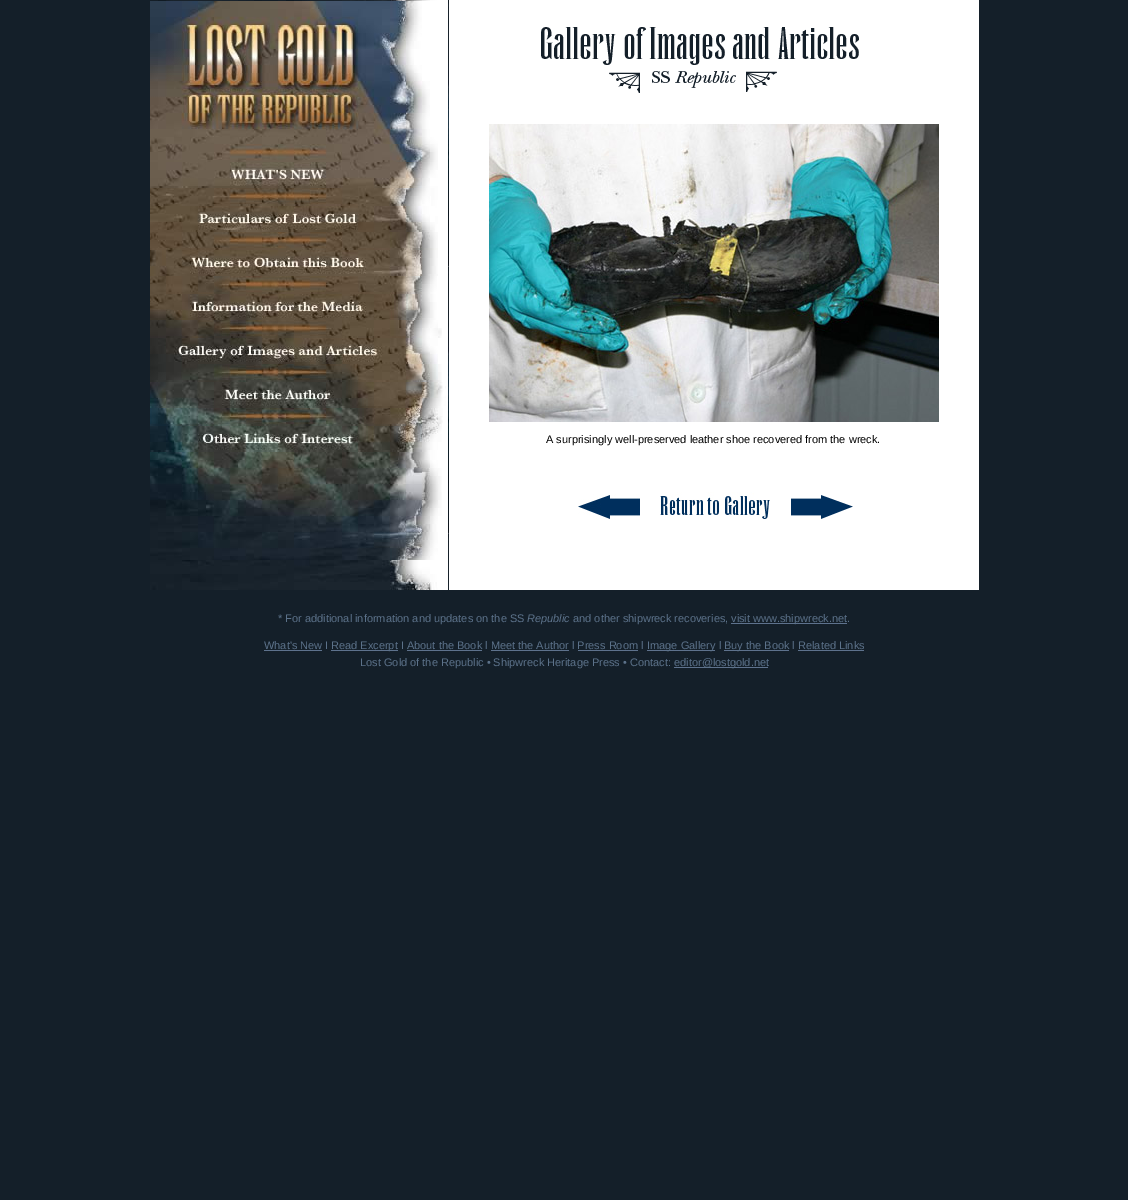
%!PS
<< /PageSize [1128 1200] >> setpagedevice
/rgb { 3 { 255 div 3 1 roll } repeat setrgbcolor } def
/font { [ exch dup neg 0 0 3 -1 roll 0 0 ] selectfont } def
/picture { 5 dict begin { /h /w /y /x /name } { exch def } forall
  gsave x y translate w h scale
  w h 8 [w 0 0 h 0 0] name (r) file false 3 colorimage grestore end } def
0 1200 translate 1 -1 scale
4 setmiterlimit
20 31 41 rgb
0 0 1128 1200 rectfill
255 255 255 rgb
449 0 530 590 rectfill
(img/1.rgb) 150 0 299 590 picture
(img/2.rgb) 150 1 288 143 picture
(img/3.rgb) 150 144 288 18 picture
(img/4.rgb) 150 162 288 26 picture
(img/5.rgb) 150 188 281 18 picture
(img/6.rgb) 150 206 285 26 picture
(img/7.rgb) 150 232 288 18 picture
(img/8.rgb) 150 250 288 26 picture
(img/9.rgb) 150 276 287 18 picture
(img/10.rgb) 150 294 287 26 picture
(img/11.rgb) 150 320 292 18 picture
(img/12.rgb) 150 338 288 26 picture
(img/13.rgb) 150 364 292 18 picture
(img/14.rgb) 150 382 296 26 picture
(img/15.rgb) 150 408 293 18 picture
(img/16.rgb) 150 426 292 26 picture
(img/17.rgb) 150 452 292 108 picture
(img/18.rgb) 541 27 318 66 picture
(img/19.rgb) 489 124 450 298 picture
(img/20.rgb) 578 494 62 26 picture
(img/21.rgb) 660 492 110 27 picture
(img/22.rgb) 791 495 62 24 picture
[
  [731 623 116 1 94 114 141]
  [264 650 58 1 94 114 141]
  [331 650 67 1 94 114 141]
  [647 650 68 1 94 114 141]
  [724 650 65 1 94 114 141]
  [674 667 94 1 94 114 141]
] { aload pop rgb rectfill } forall
/LiberationSans-Regular 11 font
0 0 0 rgb
546 443 moveto (A surprisingly well-preserved leather shoe recovered from the wreck.) show
92 114 138 rgb
278 622 moveto (* For additional information and updates on the SS) show
/LiberationSans-Italic 11 font
527 622 moveto (Republic) show
/LiberationSans-Regular 11 font
[
  [(and other shipwreck recoveries,) 573 622]
  [(visit www.shipwreck.net) 731 622]
  [(.) 847 622]
  [(What's New I) 264 649]
  [(Read Excerpt I About the Book l Meet the Author l Press Room l) 331 649]
] { aload pop moveto show } forall
[
  [407 650 75 1 94 114 141]
  [491 650 78 1 94 114 141]
  [578 650 60 1 94 114 141]
] { aload pop rgb rectfill } forall
92 114 138 rgb
647 649 moveto (Image Gallery l) show
724 649 moveto (Buy the Book l Related Links) show
94 114 141 rgb
798 650 66 1 rectfill
92 114 138 rgb
360 666 moveto (Lost Gold of the Republic • Shipwreck Heritage Press • Contact:) show
674 666 moveto (editor@lostgold.net) show
showpage
